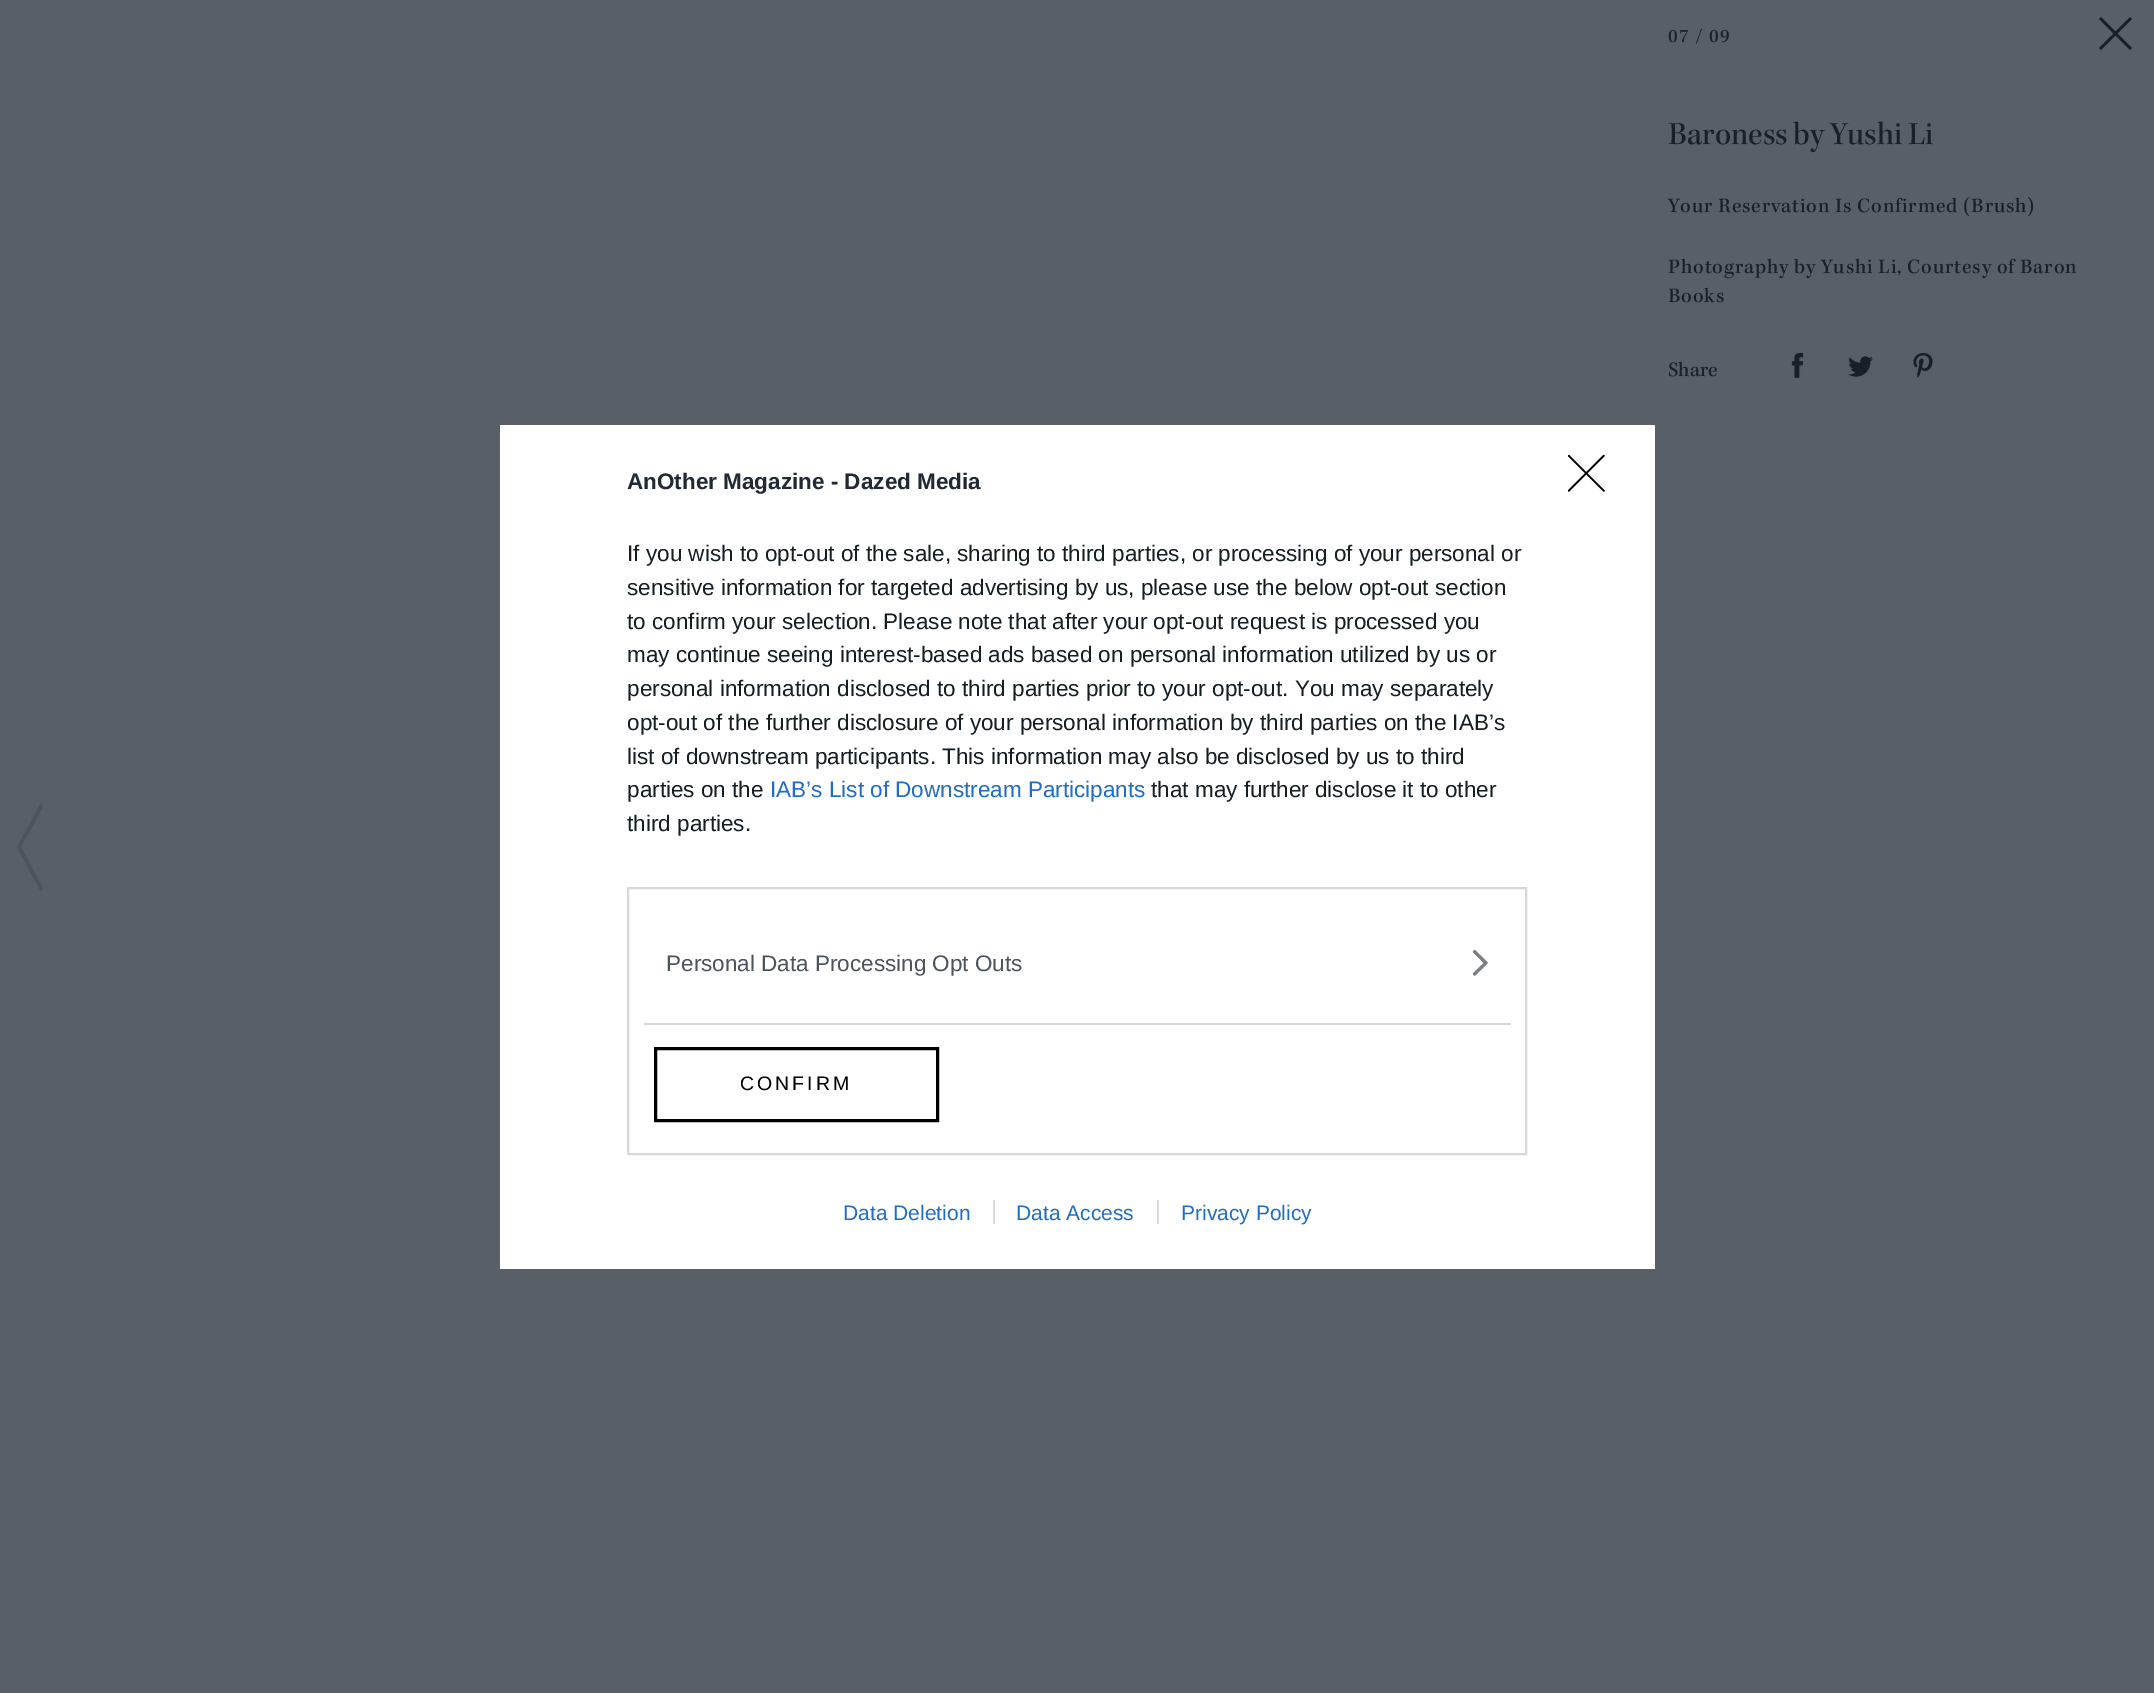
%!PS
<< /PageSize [2154 1693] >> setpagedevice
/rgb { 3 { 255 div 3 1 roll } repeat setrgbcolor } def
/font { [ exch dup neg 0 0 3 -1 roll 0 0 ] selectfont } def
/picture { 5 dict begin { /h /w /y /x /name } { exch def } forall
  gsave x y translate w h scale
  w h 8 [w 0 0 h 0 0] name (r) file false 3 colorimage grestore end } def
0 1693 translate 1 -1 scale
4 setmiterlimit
89 95 103 rgb
0 0 2154 1693 rectfill
25 31 39 rgb
2115.5 35.5 moveto 2101 50 lineto 2099 48 lineto 2113.5 33.5 lineto 2099 19 lineto 2101 17 lineto 2115.5 31.5 lineto 2130 17 lineto 2132 19 lineto 2117.5 33.5 lineto 2132 48 lineto 2130 50 lineto closepath fill
(img/1.rgb) 1791 352 13 26 picture
(img/2.rgb) 1848 356 25 21 picture
(img/3.rgb) 1913 353 20 25 picture
78 84 93 rgb
21 847 moveto 43 888 lineto 41 892 lineto 17 847 lineto 41 803 lineto 43 807 lineto closepath fill
255 255 255 rgb
500 425 1155 844 rectfill
216 216 216 rgb
2 setlinewidth
628 888 898 266 rectstroke
644 1023 867 2 rectfill
(img/4.rgb) 1472 949 16 27 picture
0 0 0 rgb
3 setlinewidth
655.5 1048.5 282 72 rectstroke
gsave
1568 455 37 37 rectclip
1.5 setlinewidth
1 setlinecap
1 setlinejoin
1568.5 455.5 moveto 1604 491 lineto 1604 455.5 moveto 1568.5 491 lineto stroke
grestore
216 216 216 rgb
993 1200 2 24 rectfill
1157 1200 2 24 rectfill
/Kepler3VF-Medium 19.5 font
25 31 43 rgb
1668 42 moveto 1.25 0 (07 / 09) ashow
/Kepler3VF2-Medium 33 font
1668 144 moveto (Baroness by Yushi Li) show
/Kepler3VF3-Medium 21 font
1668 212 moveto 0.85 0 (Your Reservation Is Confirmed \(Brush\)) ashow
1668 273 moveto 0.85 0 (Photography by Yushi Li, Courtesy of Baron) ashow
1668 302 moveto 0.85 0 (Books) ashow
1668 376 moveto (Share) show
/LiberationSans-Bold 22.5 font
33 41 52 rgb
627 489 moveto (AnOther Magazine - Dazed Media) show
/LiberationSans-Regular 22.5 font
20 30 35 rgb
[
  [(If you wish to opt-out of the sale, sharing to third parties, or processing of your personal or) 627 561]
  [(sensitive information for targeted advertising by us, please use the below opt-out section) 627 595]
  [(to confirm your selection. Please note that after your opt-out request is processed you) 627 629]
  [(may continue seeing interest-based ads based on personal information utilized by us or) 627 662]
  [(personal information disclosed to third parties prior to your opt-out. You may separately) 627 696]
  [(opt-out of the further disclosure of your personal information by third parties on the IAB’s) 627 730]
  [(list of downstream participants. This information may also be disclosed by us to third) 627 764]
  [(parties on the) 627 797]
] { aload pop moveto show } forall
32 109 197 rgb
770 797 moveto (IAB’s List of Downstream Participants) show
20 30 35 rgb
1151 797 moveto (that may further disclose it to other) show
627 831 moveto (third parties.) show
77 84 93 rgb
666 971 moveto (Personal Data Processing Opt Outs) show
/LiberationSans-Regular 19.5 font
0 0 0 rgb
740 1090 moveto 3 0 (CONFIRM) ashow
/LiberationSans-Regular 21 font
32 109 197 rgb
[
  [(Data Deletion) 843 1220]
  [(Data Access) 1016 1220]
  [(Privacy Policy) 1181 1220]
] { aload pop moveto show } forall
showpage
